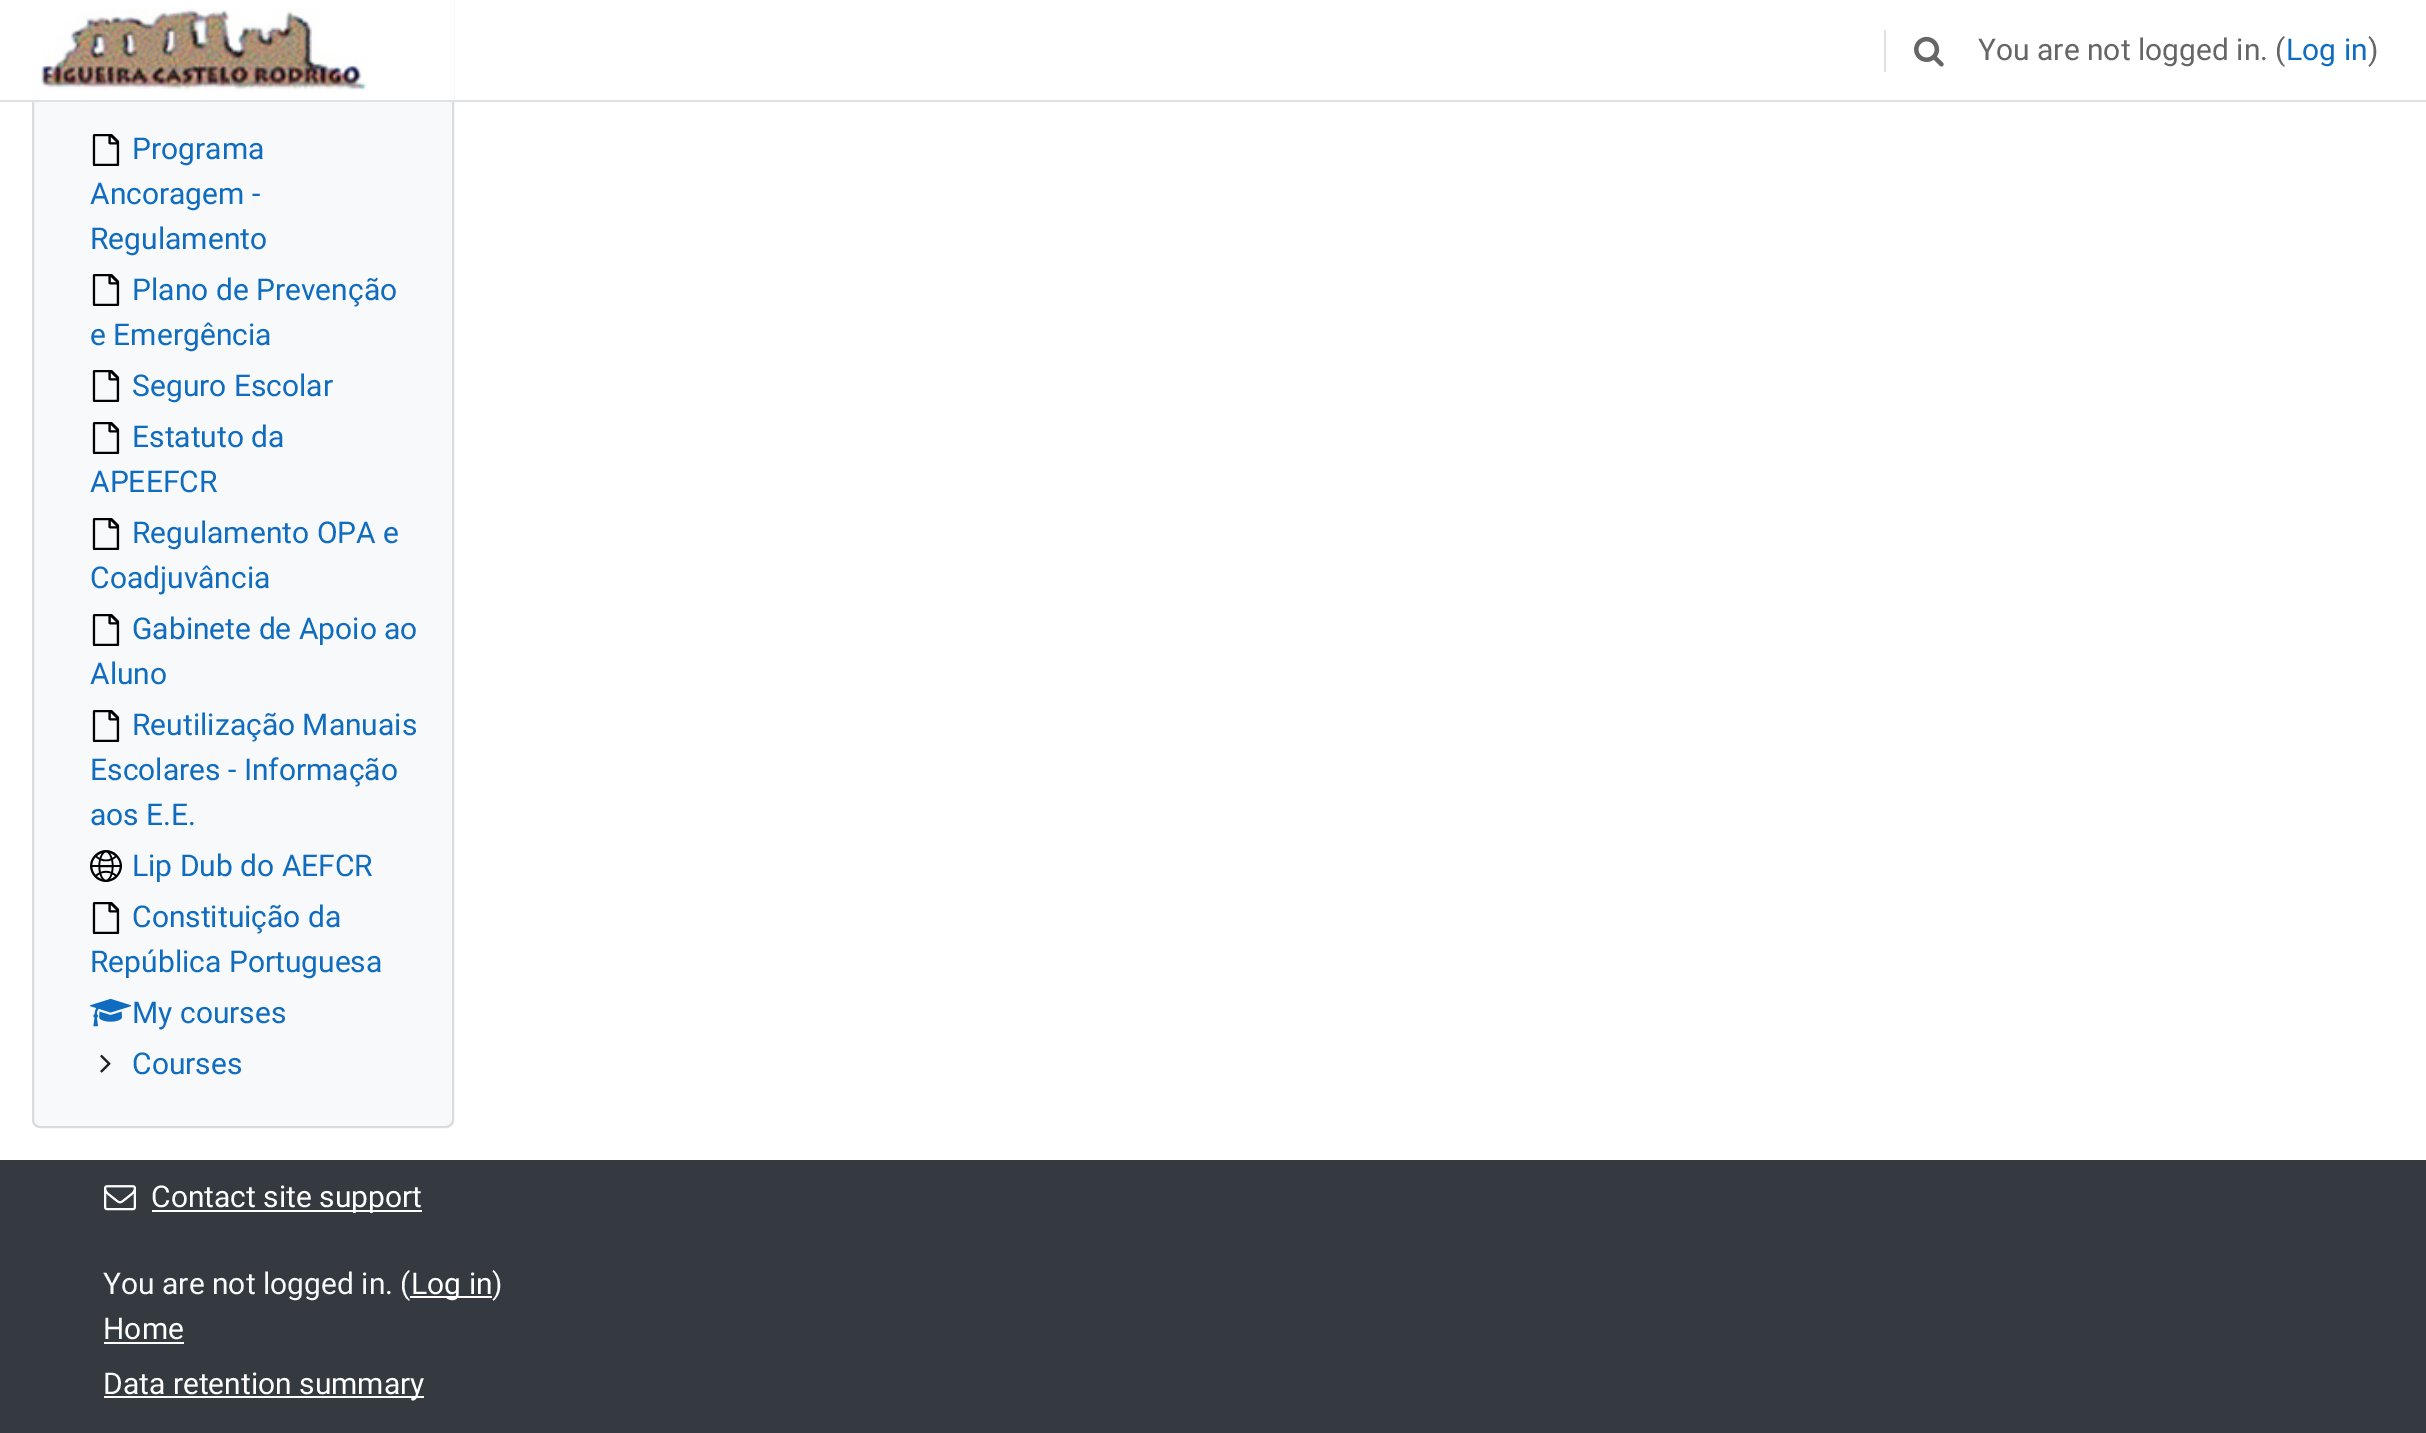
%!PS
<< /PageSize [2426 1433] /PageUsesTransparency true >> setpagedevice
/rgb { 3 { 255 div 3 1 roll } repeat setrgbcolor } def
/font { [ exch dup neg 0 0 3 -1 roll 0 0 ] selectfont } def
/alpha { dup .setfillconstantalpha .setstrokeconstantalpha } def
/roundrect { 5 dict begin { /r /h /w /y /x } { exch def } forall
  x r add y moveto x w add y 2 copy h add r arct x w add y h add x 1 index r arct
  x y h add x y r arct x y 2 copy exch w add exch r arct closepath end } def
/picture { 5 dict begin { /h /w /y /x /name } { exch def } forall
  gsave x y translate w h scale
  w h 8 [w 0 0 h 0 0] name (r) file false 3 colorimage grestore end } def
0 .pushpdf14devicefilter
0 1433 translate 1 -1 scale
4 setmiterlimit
255 255 255 rgb
0 0 2426 1433 rectfill
248 249 250 rgb
32 -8 422 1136 8 roundrect fill
0.12 alpha
0 0 0 rgb
2 setlinewidth
33 -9 420 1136 7 roundrect stroke
1 alpha
255 255 255 rgb
32 0 422 100 rectfill
222 226 230 rgb
0 100 2426 2 rectfill
(img/1.rgb) 41 8 326 84 picture
1884 30 2 42 rectfill
(img/2.rgb) 1914 36 30 31 picture
(img/3.rgb) 92 134 28 32 picture
(img/3.rgb) 92 274 28 32 picture
(img/3.rgb) 92 370 28 32 picture
(img/3.rgb) 92 422 28 32 picture
(img/3.rgb) 92 518 28 32 picture
(img/3.rgb) 92 614 28 32 picture
(img/3.rgb) 92 710 28 32 picture
(img/4.rgb) 90 850 32 32 picture
(img/3.rgb) 92 902 28 32 picture
(img/5.rgb) 90 998 42 29 picture
(img/6.rgb) 100 1054 11 19 picture
52 58 64 rgb
0 1160 2426 273 rectfill
(img/7.rgb) 104 1185 32 26 picture
[
  [152 1210 270 2 255 255 255]
  [104 1342 80 2 255 255 255]
  [104 1396 320 2 255 255 255]
] { aload pop rgb rectfill } forall
/Roboto-Regular 30 font
102 102 102 rgb
1978 60 moveto (You are not logged in. \() show
15 108 191 rgb
2286 60 moveto (Log in) show
102 102 102 rgb
2368 60 moveto (\)) show
15 108 191 rgb
[
  [(Programa) 132 159]
  [(Ancoragem -) 90 204]
  [(Regulamento) 90 249]
  [(Plano de Prevenção) 132 300]
  [(e Emergência) 90 345]
  [(Seguro Escolar) 132 396]
  [(Estatuto da) 132 447]
  [(APEEFCR) 90 492]
  [(Regulamento OPA e) 132 543]
  [(Coadjuvância) 90 588]
  [(Gabinete de Apoio ao) 132 639]
  [(Aluno) 90 684]
  [(Reutilização Manuais) 132 735]
  [(Escolares - Informação) 90 780]
  [(aos E.E.) 90 825]
  [(Lip Dub do AEFCR) 132 876]
  [(Constituição da) 132 927]
  [(República Portuguesa) 90 972]
  [(My courses) 132 1023]
  [(Courses) 132 1074]
] { aload pop moveto show } forall
255 255 255 rgb
151 1207 moveto (Contact site support) show
248 249 250 rgb
103 1294 moveto (You are not logged in. \() show
255 255 255 rgb
410 1296 82 2 rectfill
411 1294 moveto (Log in) show
248 249 250 rgb
492 1294 moveto (\)) show
255 255 255 rgb
103 1339 moveto (Home) show
103 1394 moveto (Data retention summary) show
.poppdf14devicefilter showpage
